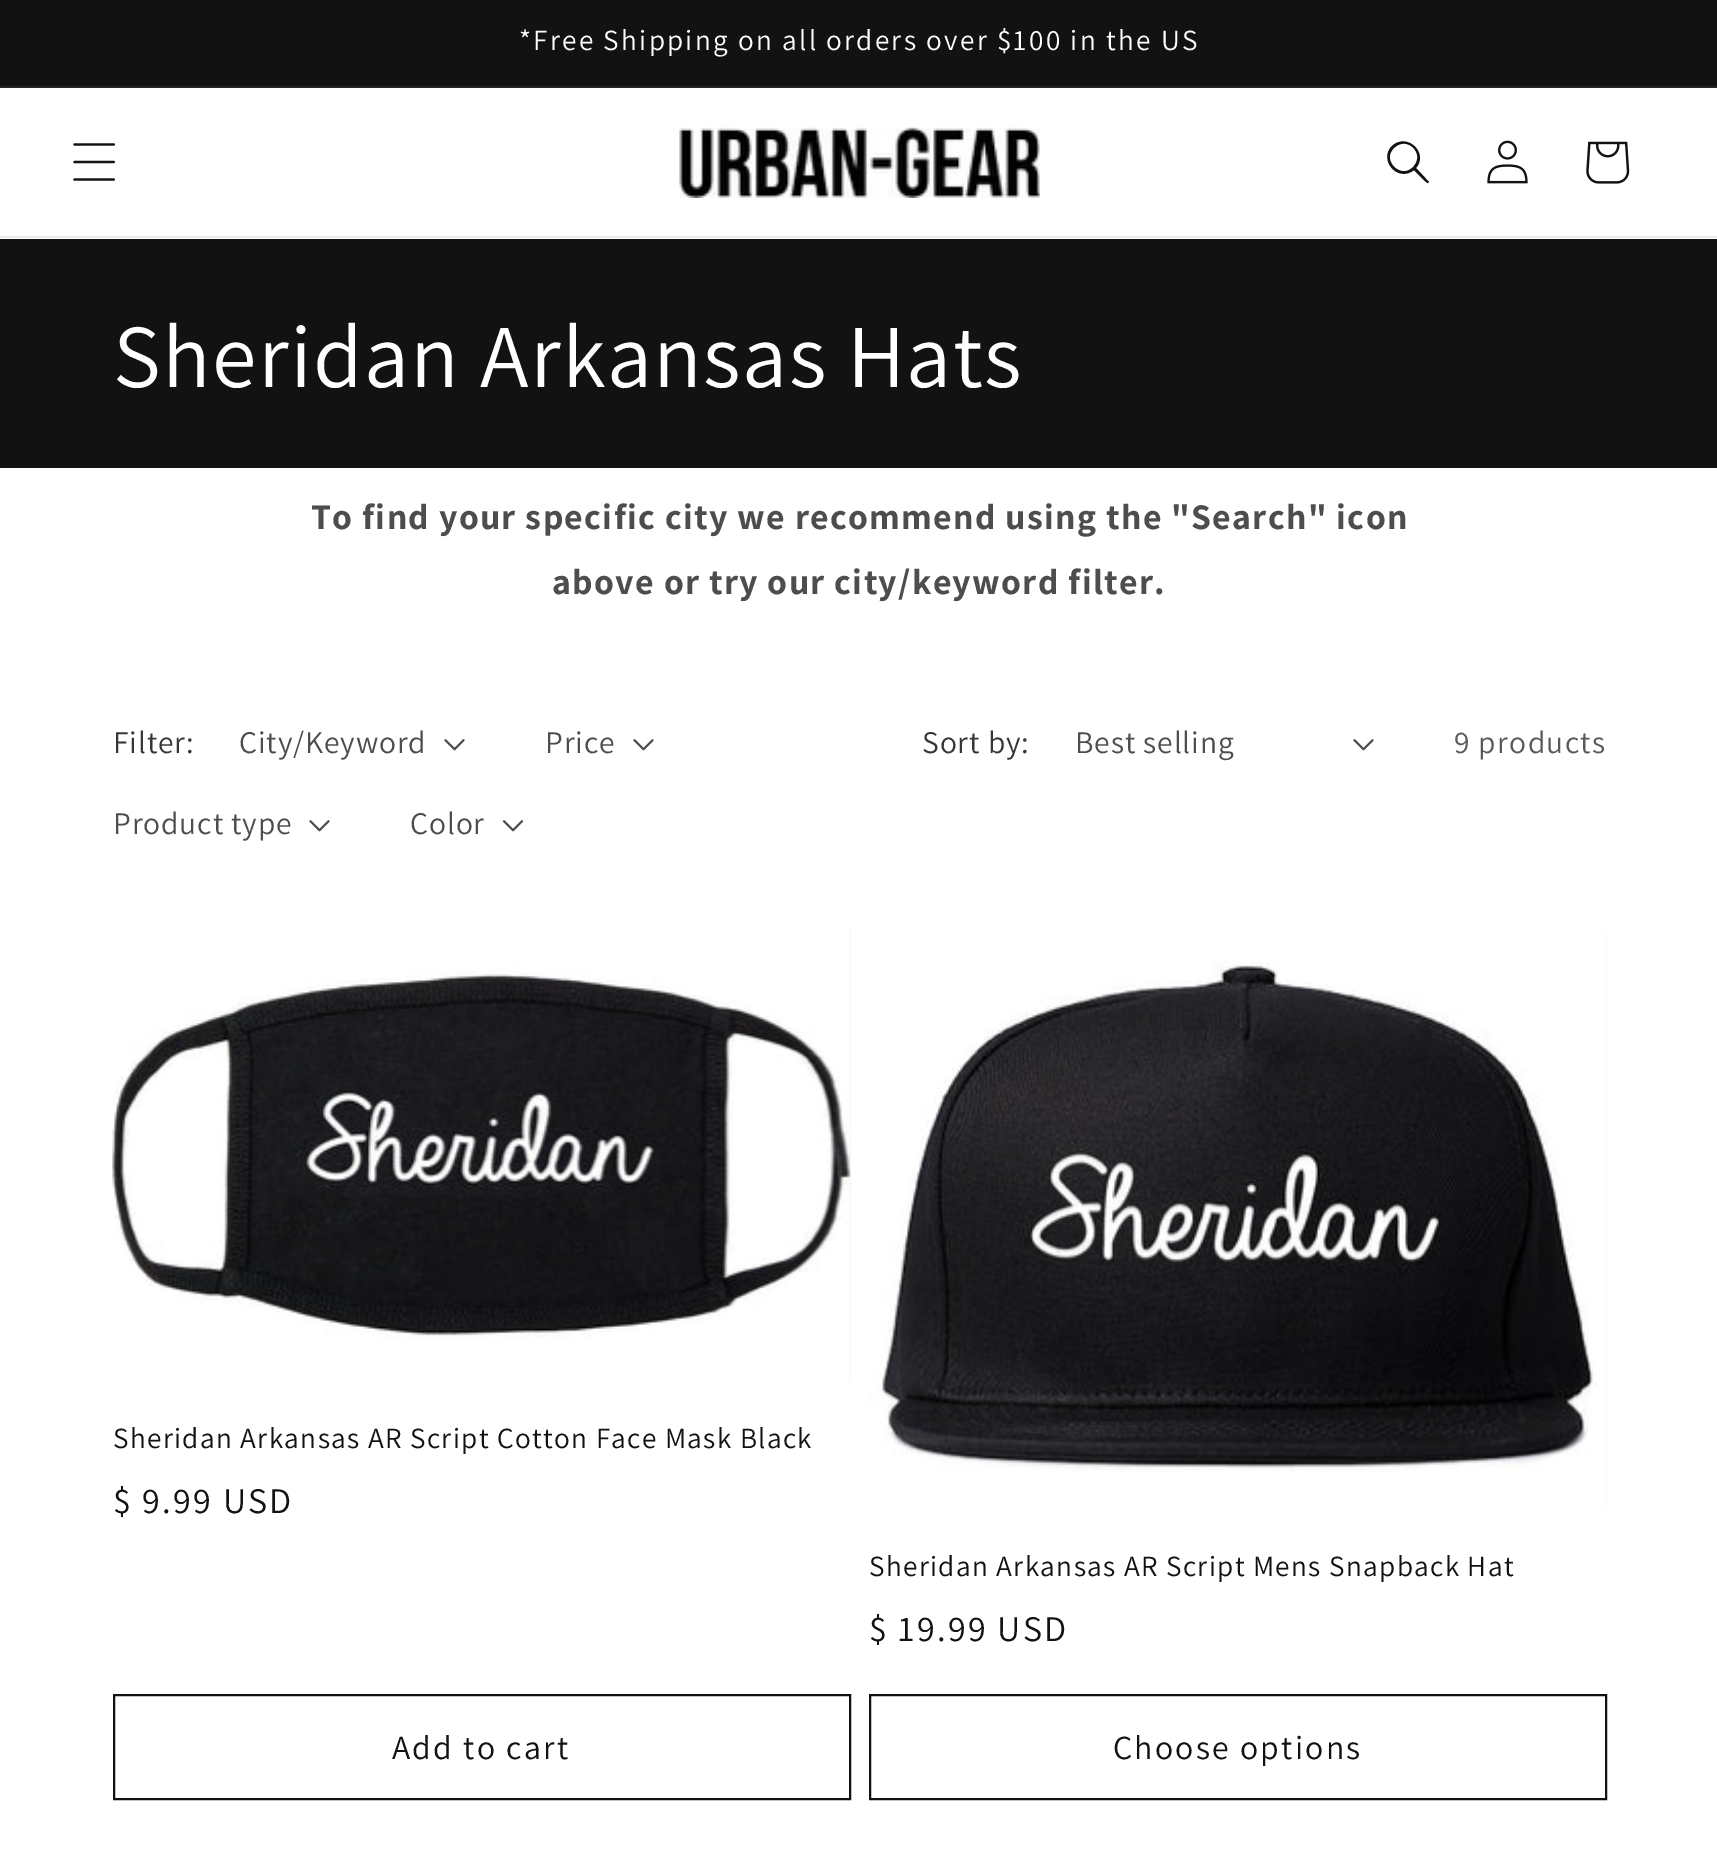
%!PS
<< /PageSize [1717 1873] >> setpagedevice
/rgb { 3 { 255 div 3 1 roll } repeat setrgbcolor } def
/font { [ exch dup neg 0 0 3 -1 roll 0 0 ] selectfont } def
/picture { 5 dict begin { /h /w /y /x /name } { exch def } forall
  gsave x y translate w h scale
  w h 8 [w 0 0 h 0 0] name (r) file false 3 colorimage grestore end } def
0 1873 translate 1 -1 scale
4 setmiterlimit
255 255 255 rgb
0 0 1717 1873 rectfill
[
  [0 0 1717 86 18 18 18]
  [0 86 1717 2 37 37 37]
  [0 236 1717 2 236 236 236]
] { aload pop rgb rectfill } forall
(img/1.rgb) 73 143 42 38 picture
(img/2.rgb) 679 127 361 71 picture
18 18 18 rgb
1413 167 moveto 1401 180 1381 160 1394 148 curveto 1407 135 1426 154 1413 167 curveto closepath 1414 170 moveto 1398 183 1378 160 1392 146 curveto 1407 132 1429 153 1416 168 curveto 1429 182 lineto 1428 183 lineto 1427 184 1416 172 1414 170 curveto closepath eofill
(img/3.rgb) 1487 140 41 44 picture
(img/4.rgb) 1586 141 44 43 picture
0 239 1717 229 rectfill
(img/5.rgb) 444 739 21 12 picture
(img/5.rgb) 633 739 21 12 picture
(img/5.rgb) 309 820 21 12 picture
(img/6.rgb) 502 820 22 12 picture
(img/5.rgb) 1353 739 21 12 picture
243 243 243 rgb
113 929 738 453 rectfill
(img/7.rgb) 112 929 739 453 picture
18 18 18 rgb
2 setlinewidth
114 1695 736 104 rectstroke
243 243 243 rgb
869 929 738 581 rectfill
(img/8.rgb) 869 929 738 581 picture
18 18 18 rgb
870 1695 736 104 rectstroke
/Assistant-Regular 29.25 font
255 255 255 rgb
519 50 moveto 2.25 0 (*Free Shipping on all orders over $100 in the US) ashow
/Assistant-Regular 90 font
113 387 moveto 1.35 0 (Sheridan Arkansas Hats) ashow
/Assistant-Bold 36 font
77 77 77 rgb
311 529 moveto 1.35 0 (To find your specific city we recommend using the "Search" icon) ashow
552 594 moveto 1.35 0 (above or try our city/keyword filter.) ashow
/Assistant-Regular 31.5 font
54 54 54 rgb
113 753 moveto 0.9 0 (Filter:) ashow
77 77 77 rgb
239 753 moveto 0.9 0 (City/Keyword) ashow
545 753 moveto 0.9 0 (Price) ashow
113 834 moveto 0.9 0 (Product type) ashow
410 834 moveto 0.9 0 (Color) ashow
54 54 54 rgb
922 753 moveto 0.9 0 (Sort by:) ashow
77 77 77 rgb
1075 753 moveto 0.9 0 (Best selling) ashow
89 89 89 rgb
1454 753 moveto 1.35 0 (9 products) ashow
/Assistant-Regular 29.25 font
18 18 18 rgb
113 1448 moveto 1.35 0 (Sheridan Arkansas AR Script Cotton Face Mask Black) ashow
/Assistant-Regular 36 font
113 1513 moveto 2.25 0 ($ 9.99 USD) ashow
/Assistant-Regular 33.75 font
392 1759 moveto 2.25 0 (Add to cart) ashow
/Assistant-Regular 29.25 font
869 1576 moveto 1.35 0 (Sheridan Arkansas AR Script Mens Snapback Hat) ashow
/Assistant-Regular 36 font
869 1641 moveto 2.25 0 ($ 19.99 USD) ashow
/Assistant-Regular 33.75 font
1113 1759 moveto 2.25 0 (Choose options) ashow
showpage
